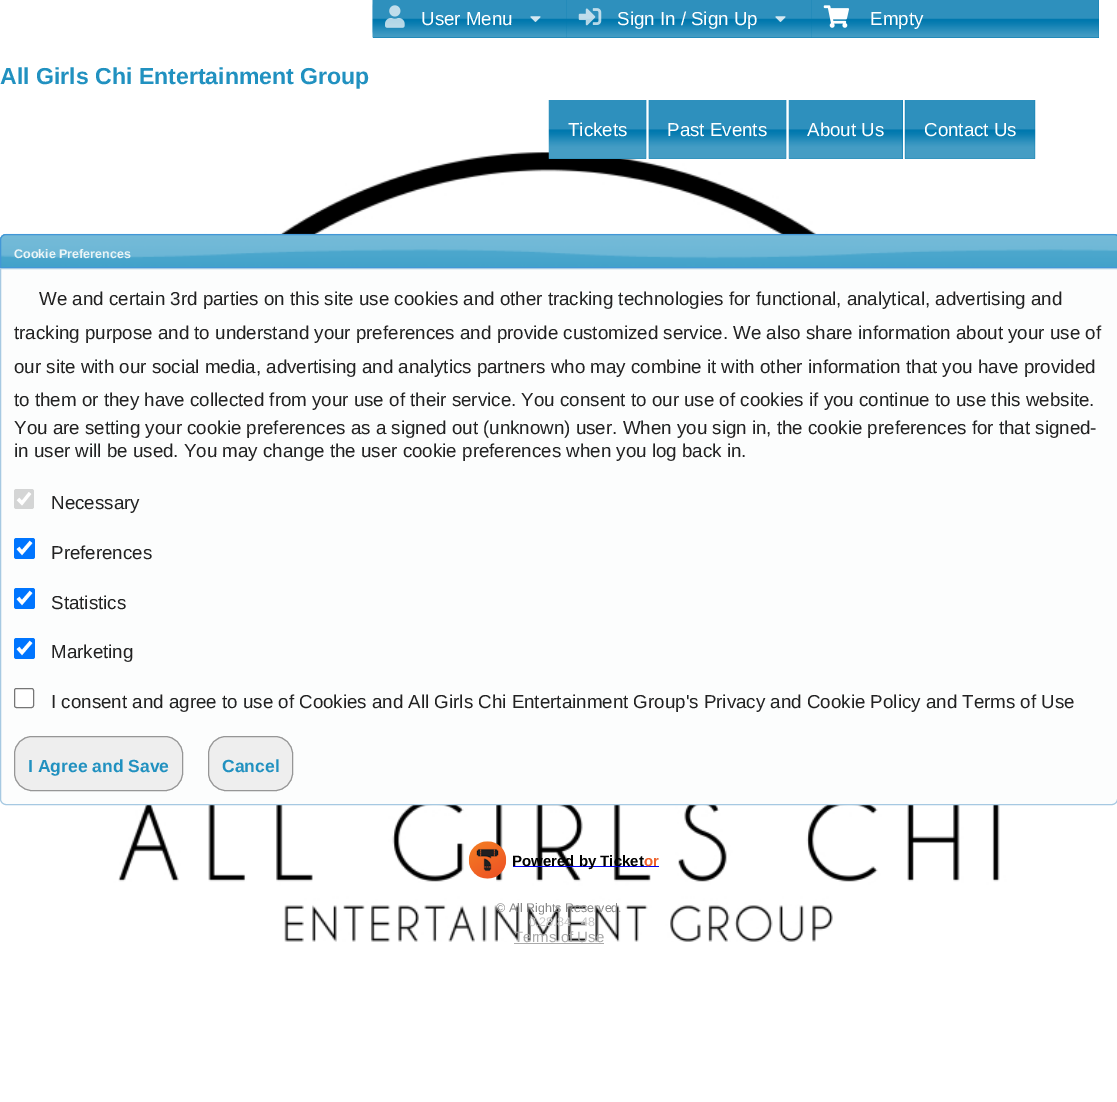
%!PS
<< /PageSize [1117 1102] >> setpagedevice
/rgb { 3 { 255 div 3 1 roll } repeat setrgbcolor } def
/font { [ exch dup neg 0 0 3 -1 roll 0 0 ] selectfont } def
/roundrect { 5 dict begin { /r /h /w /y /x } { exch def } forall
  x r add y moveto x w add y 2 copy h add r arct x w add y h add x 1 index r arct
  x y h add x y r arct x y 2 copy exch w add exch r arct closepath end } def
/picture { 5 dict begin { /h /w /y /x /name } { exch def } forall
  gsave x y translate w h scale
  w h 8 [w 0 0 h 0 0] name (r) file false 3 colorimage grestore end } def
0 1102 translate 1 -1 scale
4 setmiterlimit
255 255 255 rgb
0 0 1117 1102 rectfill
(img/1.rgb) 34 151 1049 791 picture
(img/2.rgb) 372 4 1 30 picture
0 120 174 rgb
373 37 193 1 rectfill
566 0 533 38 rectfill
(img/8.rgb) 811 0 288 38 picture
(img/6.rgb) 566 0 246 38 picture
(img/3.rgb) 372 0 195 38 picture
(img/4.rgb) 385 5 20 23 picture
(img/5.rgb) 530 16 11 6 picture
(img/7.rgb) 578 8 24 18 picture
(img/5.rgb) 775 16 11 6 picture
(img/9.rgb) 823 5 26 23 picture
549 100 97 59 rectfill
(img/10.rgb) 548 100 99 59 picture
649 100 137 59 rectfill
(img/11.rgb) 648 100 139 59 picture
789 100 114 59 rectfill
(img/12.rgb) 788 100 115 59 picture
905 100 130 59 rectfill
(img/13.rgb) 904 100 132 59 picture
(img/14.rgb) 0 233 1117 34 picture
66 151 215 rgb
6 234.5 moveto 1114 234.5 lineto 1117 234.5 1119.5 237 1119.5 240 curveto 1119.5 267.5 lineto 0.5 267.5 lineto 0.5 240 lineto 0.5 237 3 234.5 6 234.5 curveto closepath stroke
252 253 253 rgb
0.5 268.5 moveto 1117.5 268.5 lineto 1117.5 799 lineto 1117.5 802 1115 804.5 1112 804.5 curveto 6 804.5 lineto 3 804.5 0.5 802 0.5 799 curveto closepath gsave fill grestore
166 201 226 rgb
stroke
212 213 213 rgb
14 489 20 20 2.5 roundrect fill
255 255 255 rgb
3.2 setlinewidth
18 499 moveto 22 503 lineto 30 493 lineto stroke
0 117 255 rgb
14 538 21 21 2.5 roundrect fill
255 255 255 rgb
3.4 setlinewidth
18 548 moveto 22 552.5 lineto 31 542 lineto stroke
0 117 255 rgb
14 588 21 21 2.5 roundrect fill
255 255 255 rgb
18 598 moveto 22 602.5 lineto 31 592 lineto stroke
0 117 255 rgb
14 638 21 21 2.5 roundrect fill
255 255 255 rgb
18 648 moveto 22 652.5 lineto 31 642 lineto stroke
14.5 688.5 19 19 2 roundrect gsave fill grestore
118 118 118 rgb
1 setlinewidth
stroke
238 238 238 rgb
14.5 736.5 168 54 17.5 roundrect gsave fill grestore
150 150 150 rgb
stroke
238 238 238 rgb
208.5 736.5 84 54 17.5 roundrect gsave fill grestore
150 150 150 rgb
stroke
(img/15.rgb) 468 841 39 38 picture
0 0 238 rgb
513 866 146 1 rectfill
170 170 170 rgb
514 943 90 1 rectfill
/LiberationSans-Regular 18.75 font
255 255 255 rgb
[
  [(User Menu) 421 25]
  [(Sign In / Sign Up) 617 25]
  [(Empty) 870 25]
] { aload pop moveto show } forall
/LiberationSans-Bold 23.1 font
33 145 192 rgb
0 84 moveto (All Girls Chi Entertainment Group) show
/LiberationSans-Regular 18.75 font
255 255 255 rgb
[
  [(Tickets) 568 136]
  [(Past Events) 667 136]
  [(About Us) 807 136]
  [(Contact Us) 924 136]
] { aload pop moveto show } forall
/LiberationSans-Bold 12.5 font
234 245 247 rgb
14 258 moveto (Cookie Preferences) show
/LiberationSans-Regular 18.75 font
34 34 34 rgb
[
  [(We and certain 3rd parties on this site use cookies and other tracking technologies for functional, analytical, advertising and) 39 305]
  [(tracking purpose and to understand your preferences and provide customized service. We also share information about your use of) 14 339]
  [(our site with our social media, advertising and analytics partners who may combine it with other information that you have provided) 14 373]
  [(to them or they have collected from your use of their service. You consent to our use of cookies if you continue to use this website.) 14 406]
  [(You are setting your cookie preferences as a signed out \(unknown\) user. When you sign in, the cookie preferences for that signed-) 14 434]
  [(in user will be used. You may change the user cookie preferences when you log back in.) 14 457]
  [(Necessary) 51 509]
  [(Preferences) 51 559]
  [(Statistics) 51 609]
  [(Marketing) 51 658]
  [(I consent and agree to use of Cookies and All Girls Chi Entertainment Group's Privacy and Cookie Policy and Terms of Use) 51 708]
] { aload pop moveto show } forall
/LiberationSans-Bold 17.5 font
33 145 192 rgb
28 772 moveto (I Agree and Save) show
222 772 moveto (Cancel) show
/LiberationSans-Bold 15 font
0 0 0 rgb
512 866 moveto (Powered by Ticket) show
237 97 43 rgb
644 866 moveto (or) show
/LiberationSans-Regular 12.5 font
136 136 136 rgb
496 912 moveto (© All Rights Reserved.) show
201 201 201 rgb
529 926 moveto (0.28.84) show
581 926 moveto (48) show
/LiberationSans-Regular 15 font
170 170 170 rgb
514 942 moveto (Terms of Use) show
showpage
